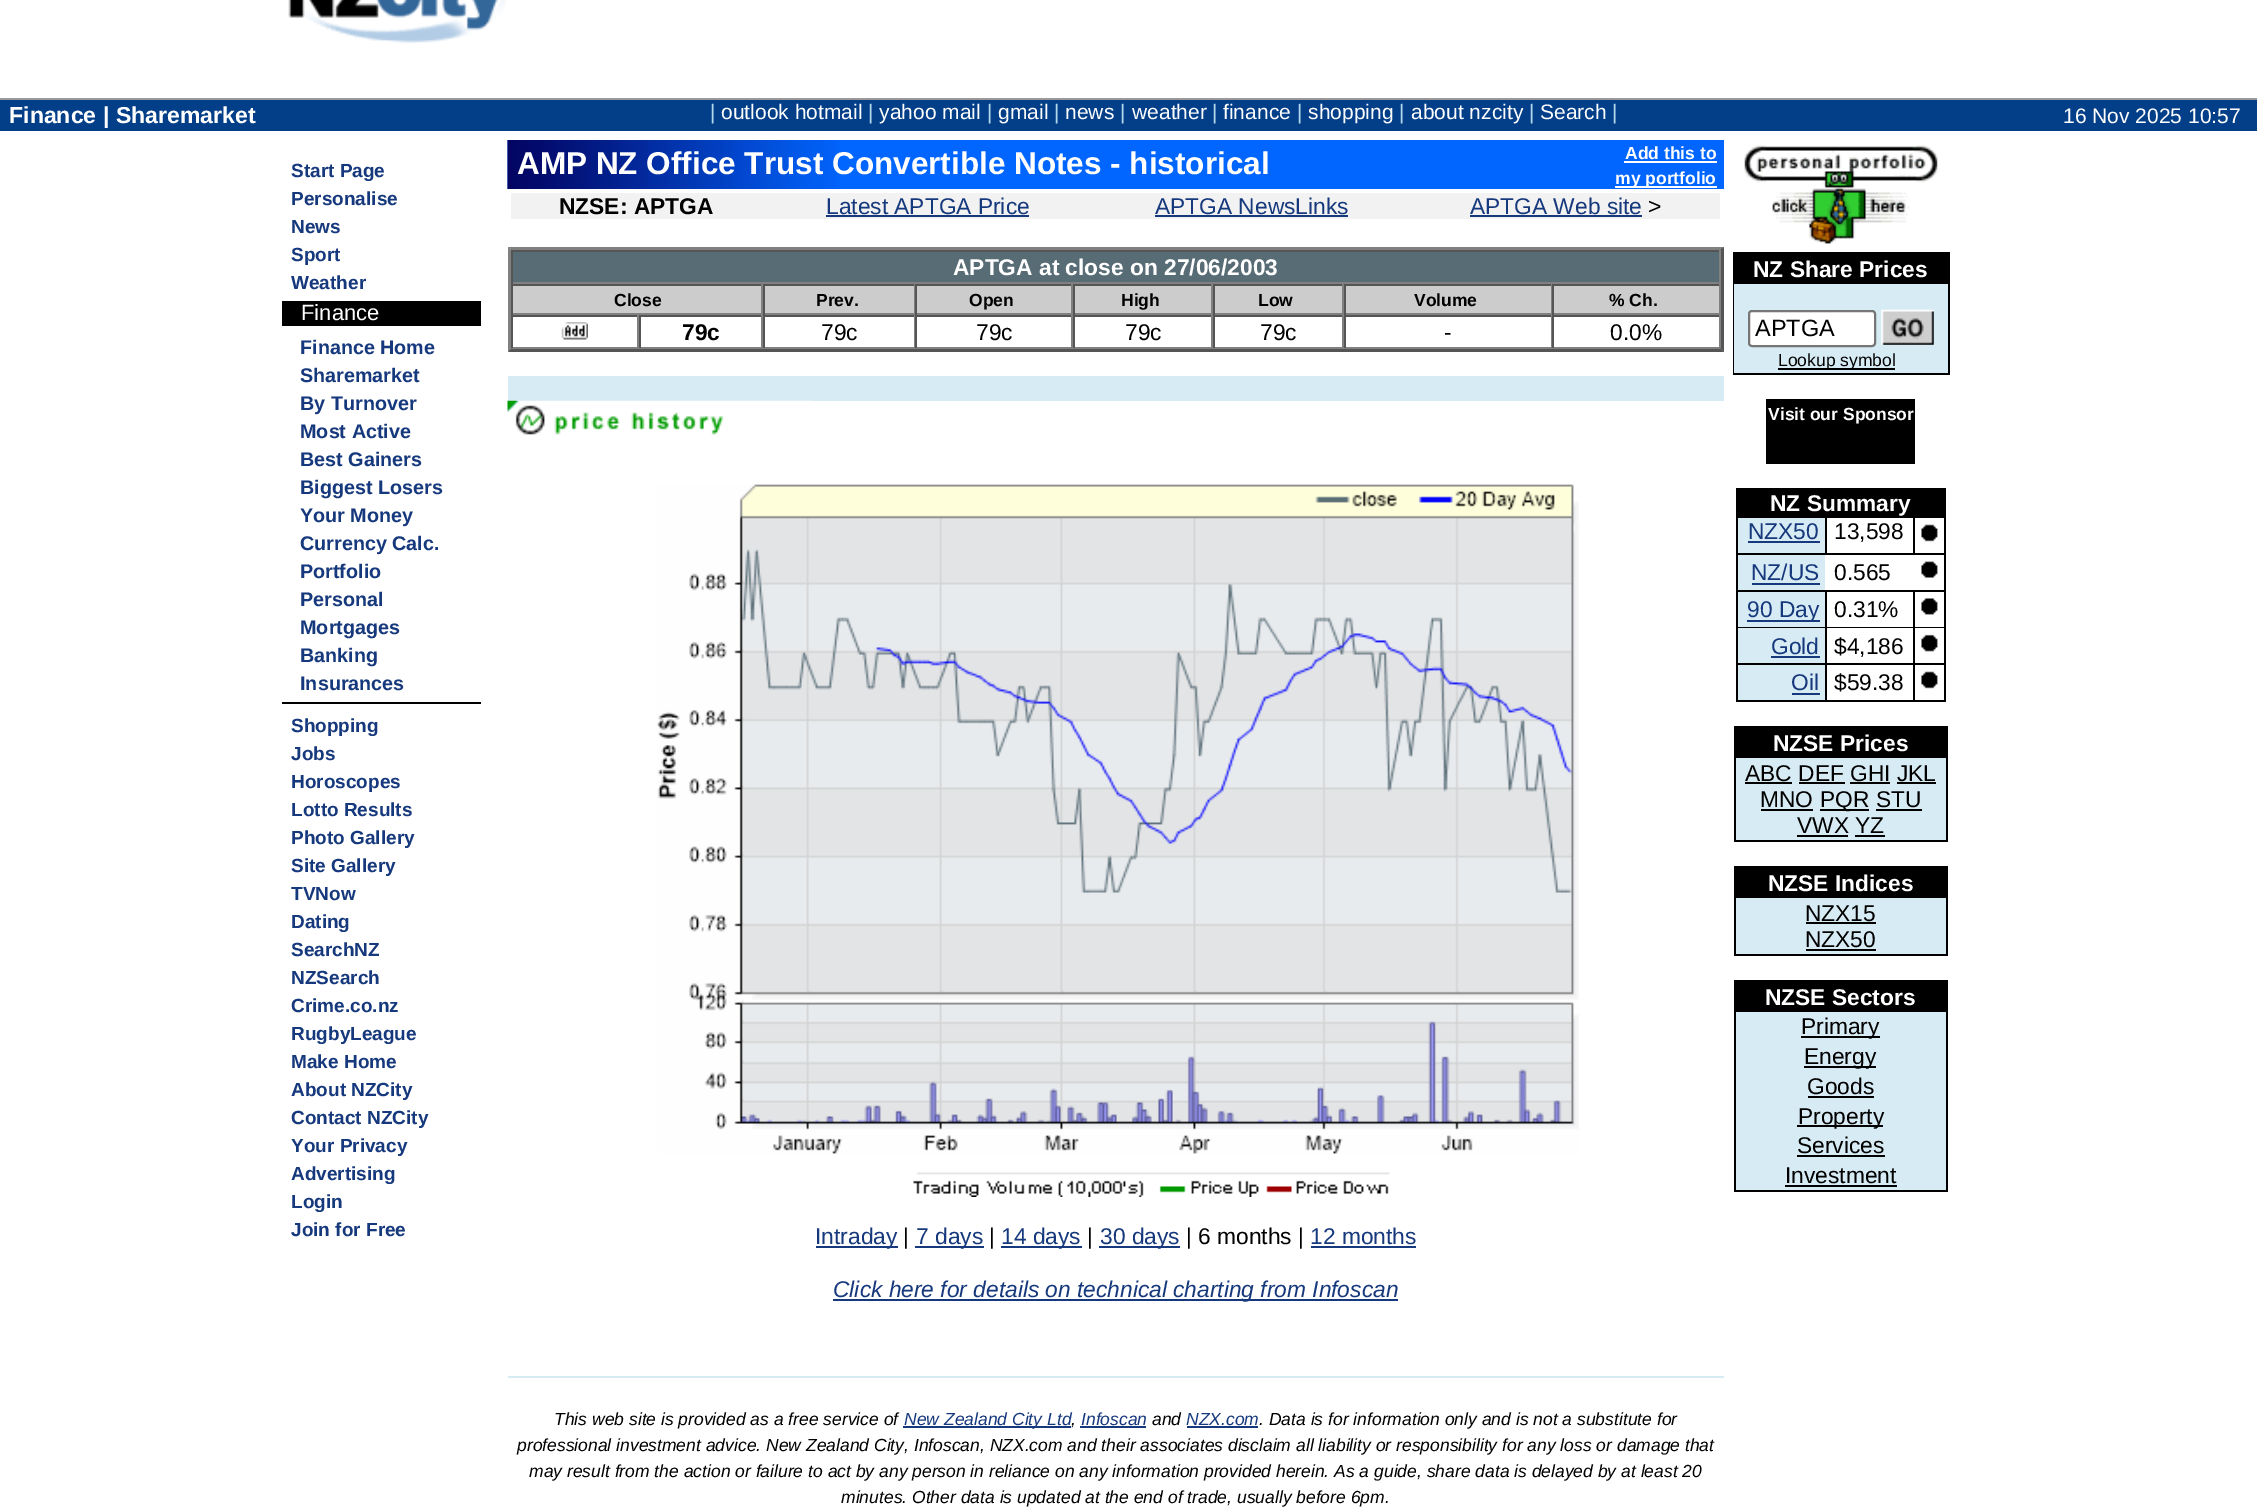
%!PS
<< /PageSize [2257 1512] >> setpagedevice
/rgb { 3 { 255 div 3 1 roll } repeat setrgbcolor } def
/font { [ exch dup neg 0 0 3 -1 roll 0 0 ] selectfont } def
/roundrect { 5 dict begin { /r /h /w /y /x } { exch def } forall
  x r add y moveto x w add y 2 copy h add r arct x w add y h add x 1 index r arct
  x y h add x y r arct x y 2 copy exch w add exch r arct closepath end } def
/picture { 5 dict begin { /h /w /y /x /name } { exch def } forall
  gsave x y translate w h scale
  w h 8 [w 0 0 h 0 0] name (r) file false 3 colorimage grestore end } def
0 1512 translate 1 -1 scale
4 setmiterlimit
255 255 255 rgb
0 0 2257 1512 rectfill
(img/1.rgb) 288 0 218 44 picture
[
  [0 100 2257 31 2 63 136]
  [0 98 2257 2 153 153 153]
  [282 301 199 25 0 0 0]
  [282 702 199 2 0 0 0]
  [840 140 884 49 0 102 255]
] { aload pop rgb rectfill } forall
(img/2.rgb) 507 140 333 49 picture
[
  [1624 161 93 2 255 255 255]
  [1615 186 102 2 255 255 255]
  [511 193 1209 26 242 242 242]
  [826 215 203 2 22 56 124]
  [1155 215 193 2 22 56 124]
  [1470 215 172 2 22 56 124]
] { aload pop rgb rectfill } forall
128 128 128 rgb
508 247 moveto 1724 247 lineto 1720 250 lineto 511 250 lineto closepath fill
85 85 85 rgb
1724 247 moveto 1724 352 lineto 1720 348 lineto 1720 250 lineto closepath fill
1724 352 moveto 508 352 lineto 511 348 lineto 1720 348 lineto closepath fill
128 128 128 rgb
508 352 moveto 508 247 lineto 511 250 lineto 511 348 lineto closepath fill
[
  [513 252 1206 30 88 108 117]
  [511 250 1209 2 85 85 85]
  [1719 250 2 34 128 128 128]
  [511 282 1209 2 128 128 128]
  [511 250 2 34 85 85 85]
  [513 286 1206 27 204 204 204]
  [511 284 1209 2 85 85 85]
  [761 284 2 31 128 128 128]
  [511 313 252 2 128 128 128]
  [511 284 2 31 85 85 85]
  [914 284 1 31 128 128 128]
  [763 313 152 2 128 128 128]
  [763 284 2 31 85 85 85]
  [1071 284 2 31 128 128 128]
  [915 313 158 2 128 128 128]
  [915 284 2 31 85 85 85]
  [1211 284 2 31 128 128 128]
  [1073 313 140 2 128 128 128]
  [1073 284 2 31 85 85 85]
  [1342 284 2 31 128 128 128]
  [1213 313 131 2 128 128 128]
  [1213 284 2 31 85 85 85]
  [1551 284 1 31 128 128 128]
  [1344 313 208 2 128 128 128]
  [1344 284 2 31 85 85 85]
  [1719 284 2 31 128 128 128]
  [1552 313 168 2 128 128 128]
  [1552 284 2 31 85 85 85]
  [511 315 1209 2 85 85 85]
  [637 315 2 33 128 128 128]
  [511 347 128 2 128 128 128]
  [511 315 2 33 85 85 85]
] { aload pop rgb rectfill } forall
(img/3.rgb) 561 322 27 18 picture
[
  [761 315 2 33 128 128 128]
  [639 347 124 2 128 128 128]
  [639 315 2 33 85 85 85]
  [914 315 1 33 128 128 128]
  [763 347 152 2 128 128 128]
  [763 315 2 33 85 85 85]
  [1071 315 2 33 128 128 128]
  [915 347 158 2 128 128 128]
  [915 315 2 33 85 85 85]
  [1211 315 2 33 128 128 128]
  [1073 347 140 2 128 128 128]
  [1073 315 2 33 85 85 85]
  [1342 315 2 33 128 128 128]
  [1213 347 131 2 128 128 128]
  [1213 315 2 33 85 85 85]
  [1551 315 1 33 128 128 128]
  [1344 347 208 2 128 128 128]
  [1344 315 2 33 85 85 85]
  [1719 315 2 33 128 128 128]
  [1552 347 168 2 128 128 128]
  [1552 315 2 33 85 85 85]
  [508 376 1216 25 215 235 244]
] { aload pop rgb rectfill } forall
(img/4.rgb) 507 400 307 35 picture
(img/5.rgb) 657 484 923 670 picture
(img/6.rgb) 913 1172 477 25 picture
[
  [816 1246 82 2 22 56 124]
  [915 1246 69 2 22 56 124]
  [1001 1246 81 2 22 56 124]
  [1099 1246 81 2 22 56 124]
  [1311 1246 105 2 22 56 124]
  [833 1299 565 2 22 56 124]
  [508 1376 1216 2 215 235 244]
  [903 1426 168 2 22 56 124]
  [1080 1426 66 2 22 56 124]
  [1187 1426 71 2 22 56 124]
] { aload pop rgb rectfill } forall
(img/7.rgb) 1744 145 194 99 picture
0 0 0 rgb
1733 252 217 123 rectfill
215 235 244 rgb
1734 284 214 89 rectfill
255 255 255 rgb
1749 311 126 35 3 roundrect gsave fill grestore
118 118 118 rgb
2 setlinewidth
stroke
(img/8.rgb) 1881 309 53 36 picture
[
  [1778 368 117 2 0 0 0]
  [1766 399 149 65 0 0 0]
  [1736 488 210 214 0 0 0]
  [1738 518 87 35 215 235 244]
  [1748 541 72 2 22 56 124]
  [1827 518 86 35 255 255 255]
  [1915 518 29 35 255 255 255]
] { aload pop rgb rectfill } forall
(img/9.rgb) 1921 524 17 18 picture
[
  [1825 555 119 35 255 255 255]
  [1738 555 87 35 215 235 244]
  [1752 583 68 2 22 56 124]
] { aload pop rgb rectfill } forall
(img/10.rgb) 1921 561 17 17 picture
[
  [1738 592 87 35 215 235 244]
  [1747 620 73 2 22 56 124]
  [1827 592 86 35 255 255 255]
  [1915 592 29 35 255 255 255]
] { aload pop rgb rectfill } forall
(img/11.rgb) 1921 598 17 17 picture
[
  [1738 628 87 35 215 235 244]
  [1771 656 49 2 22 56 124]
  [1827 628 86 35 255 255 255]
  [1915 628 29 35 255 255 255]
] { aload pop rgb rectfill } forall
(img/12.rgb) 1921 634 17 18 picture
[
  [1738 665 87 35 215 235 244]
  [1792 693 28 2 22 56 124]
  [1827 665 86 35 255 255 255]
  [1915 665 29 35 255 255 255]
] { aload pop rgb rectfill } forall
(img/9.rgb) 1921 671 17 18 picture
[
  [1734 726 214 116 0 0 0]
  [1736 758 210 82 215 235 244]
  [1745 782 47 2 0 0 0]
  [1799 782 46 2 0 0 0]
  [1850 782 40 2 0 0 0]
  [1897 782 39 2 0 0 0]
  [1761 809 52 2 0 0 0]
  [1820 809 49 2 0 0 0]
  [1876 809 46 2 0 0 0]
  [1797 835 51 2 0 0 0]
  [1855 835 30 2 0 0 0]
  [1734 866 214 90 0 0 0]
  [1736 898 210 56 215 235 244]
  [1806 922 70 2 0 0 0]
  [1806 949 70 2 0 0 0]
  [1734 980 214 212 0 0 0]
  [1736 1012 210 178 215 235 244]
  [1801 1036 79 2 0 0 0]
  [1804 1066 72 2 0 0 0]
  [1808 1096 66 2 0 0 0]
  [1797 1125 86 2 0 0 0]
  [1797 1155 88 2 0 0 0]
  [1785 1185 112 2 0 0 0]
] { aload pop rgb rectfill } forall
/LiberationSans-Bold 23.1 font
255 255 255 rgb
9 123 moveto (Finance | Sharemarket) show
/LiberationSans-Regular 21 font
176 216 234 rgb
710 119 moveto (|) show
255 255 255 rgb
721 119 moveto (outlook hotmail) show
176 216 234 rgb
868 119 moveto (|) show
255 255 255 rgb
879 119 moveto (yahoo mail) show
176 216 234 rgb
987 119 moveto (|) show
255 255 255 rgb
998 119 moveto (gmail) show
176 216 234 rgb
1054 119 moveto (|) show
255 255 255 rgb
1065 119 moveto (news) show
176 216 234 rgb
1120 119 moveto (|) show
255 255 255 rgb
1132 119 moveto (weather) show
176 216 234 rgb
1212 119 moveto (|) show
255 255 255 rgb
1223 119 moveto (finance) show
176 216 234 rgb
1297 119 moveto (|) show
255 255 255 rgb
1308 119 moveto (shopping) show
176 216 234 rgb
1399 119 moveto (|) show
255 255 255 rgb
1411 119 moveto (about nzcity) show
176 216 234 rgb
1529 119 moveto (|) show
255 255 255 rgb
1540 119 moveto (Search) show
176 216 234 rgb
1612 119 moveto (|) show
255 255 255 rgb
2063 123 moveto (16 Nov 2025 10:57) show
/LiberationSans-Bold 19 font
22 56 124 rgb
[
  [(Start Page) 291 177]
  [(Personalise) 291 205]
  [(News) 291 233]
  [(Sport) 291 261]
  [(Weather) 291 289]
] { aload pop moveto show } forall
/LiberationSans-Regular 22 font
255 255 255 rgb
301 320 moveto (Finance) show
/LiberationSans-Bold 19.75 font
22 56 124 rgb
[
  [(Finance Home) 300 354]
  [(Sharemarket) 300 382]
  [(By Turnover) 300 410]
  [(Most Active) 300 438]
  [(Best Gainers) 300 466]
  [(Biggest Losers) 300 494]
  [(Your Money) 300 522]
  [(Currency Calc.) 300 550]
  [(Portfolio) 300 578]
  [(Personal) 300 606]
  [(Mortgages) 300 634]
  [(Banking) 300 662]
  [(Insurances) 300 690]
] { aload pop moveto show } forall
/LiberationSans-Bold 19 font
[
  [(Shopping) 291 732]
  [(Jobs) 291 760]
  [(Horoscopes) 291 788]
  [(Lotto Results) 291 816]
  [(Photo Gallery) 291 844]
  [(Site Gallery) 291 872]
  [(TVNow) 291 900]
  [(Dating) 291 928]
  [(SearchNZ) 291 956]
  [(NZSearch) 291 984]
  [(Crime.co.nz) 291 1012]
  [(RugbyLeague) 291 1040]
  [(Make Home) 291 1068]
  [(About NZCity) 291 1096]
  [(Contact NZCity) 291 1124]
  [(Your Privacy) 291 1152]
  [(Advertising) 291 1180]
  [(Login) 291 1208]
  [(Join for Free) 291 1236]
] { aload pop moveto show } forall
/LiberationSans-Bold 31.5 font
255 255 255 rgb
517 174 moveto (AMP NZ Office Trust Convertible Notes - historical) show
/LiberationSans-Bold 17.5 font
1625 159 moveto (Add this to) show
1615 184 moveto (my portfolio) show
/LiberationSans-Bold 22.75 font
0 0 0 rgb
559 214 moveto (NZSE: APTGA) show
/LiberationSans-Regular 22.75 font
22 56 124 rgb
[
  [(Latest APTGA Price) 826 214]
  [(APTGA NewsLinks) 1155 214]
  [(APTGA Web site) 1470 214]
] { aload pop moveto show } forall
0 0 0 rgb
1648 214 moveto (>) show
/LiberationSans-Bold 22.75 font
255 255 255 rgb
953 275 moveto (APTGA at close on 27/06/2003) show
/LiberationSans-Bold 17.5 font
0 0 0 rgb
[
  [(Close) 614 306]
  [(Prev.) 816 306]
  [(Open) 969 306]
  [(High) 1121 306]
  [(Low) 1258 306]
  [(Volume) 1414 306]
  [(% Ch.) 1609 306]
] { aload pop moveto show } forall
/LiberationSans-Bold 22.75 font
682 340 moveto (79c) show
/LiberationSans-Regular 22.75 font
[
  [(79c) 821 340]
  [(79c) 976 340]
  [(79c) 1125 340]
  [(79c) 1260 340]
  [(-) 1444 340]
  [(0.0%) 1610 340]
] { aload pop moveto show } forall
22 56 124 rgb
815 1244 moveto (Intraday) show
0 0 0 rgb
903 1244 moveto (|) show
22 56 124 rgb
916 1244 moveto (7 days) show
0 0 0 rgb
989 1244 moveto (|) show
22 56 124 rgb
1001 1244 moveto (14 days) show
0 0 0 rgb
1087 1244 moveto (|) show
22 56 124 rgb
1100 1244 moveto (30 days) show
0 0 0 rgb
1186 1244 moveto (| 6 months |) show
22 56 124 rgb
1310 1244 moveto (12 months) show
/LiberationSans-Italic 22.75 font
833 1297 moveto (Click here for details on technical charting from Infoscan) show
/LiberationSans-Italic 17.5 font
0 0 0 rgb
554 1425 moveto (This web site is provided as a free service of) show
22 56 124 rgb
904 1425 moveto (New Zealand City Ltd) show
0 0 0 rgb
1071 1425 moveto (,) show
22 56 124 rgb
1081 1425 moveto (Infoscan) show
0 0 0 rgb
1152 1425 moveto (and) show
22 56 124 rgb
1186 1425 moveto (NZX.com) show
0 0 0 rgb
[
  [(. Data is for information only and is not a substitute for) 1259 1425]
  [(professional investment advice. New Zealand City, Infoscan, NZX.com and their associates disclaim all liability or responsibility for any loss or damage that) 517 1451]
  [(may result from the action or failure to act by any person in reliance on any information provided herein. As a guide, share data is delayed by at least 20) 529 1477]
  [(minutes. Other data is updated at the end of trade, usually before 6pm.) 841 1503]
] { aload pop moveto show } forall
/LiberationSans-Bold 22.75 font
255 255 255 rgb
1753 277 moveto (NZ Share Prices) show
/LiberationSans-Regular 23.5 font
0 0 0 rgb
1755 336 moveto (APTGA) show
/LiberationSans-Regular 17.5 font
1778 366 moveto (Lookup symbol) show
/LiberationSans-Bold 17.5 font
255 255 255 rgb
1768 420 moveto (Visit our Sponsor) show
/LiberationSans-Bold 22.75 font
1770 511 moveto (NZ Summary) show
/LiberationSans-Regular 22.75 font
22 56 124 rgb
1748 539 moveto (NZX50) show
0 0 0 rgb
1834 539 moveto (13,598) show
22 56 124 rgb
1751 580 moveto (NZ/US) show
0 0 0 rgb
1834 580 moveto (0.565) show
22 56 124 rgb
1747 617 moveto (90 Day) show
0 0 0 rgb
1834 617 moveto (0.31%) show
22 56 124 rgb
1771 654 moveto (Gold) show
0 0 0 rgb
1834 654 moveto ($4,186) show
22 56 124 rgb
1791 690 moveto (Oil) show
0 0 0 rgb
1834 690 moveto ($59.38) show
/LiberationSans-Bold 22.75 font
255 255 255 rgb
1773 751 moveto (NZSE Prices) show
/LiberationSans-Regular 22.75 font
0 0 0 rgb
[
  [(ABC DEF GHI JKL) 1745 781]
  [(MNO) 1760 807]
  [(PQR STU) 1820 807]
  [(VWX YZ) 1797 833]
] { aload pop moveto show } forall
/LiberationSans-Bold 22.75 font
255 255 255 rgb
1768 891 moveto (NZSE Indices) show
/LiberationSans-Regular 22.75 font
0 0 0 rgb
1805 921 moveto (NZX15) show
1805 947 moveto (NZX50) show
/LiberationSans-Bold 22.75 font
255 255 255 rgb
1765 1005 moveto (NZSE Sectors) show
/LiberationSans-Regular 22.75 font
0 0 0 rgb
[
  [(Primary) 1801 1034]
  [(Energy) 1804 1064]
  [(Goods) 1807 1094]
  [(Property) 1798 1124]
  [(Services) 1797 1153]
  [(Investment) 1785 1183]
] { aload pop moveto show } forall
showpage
